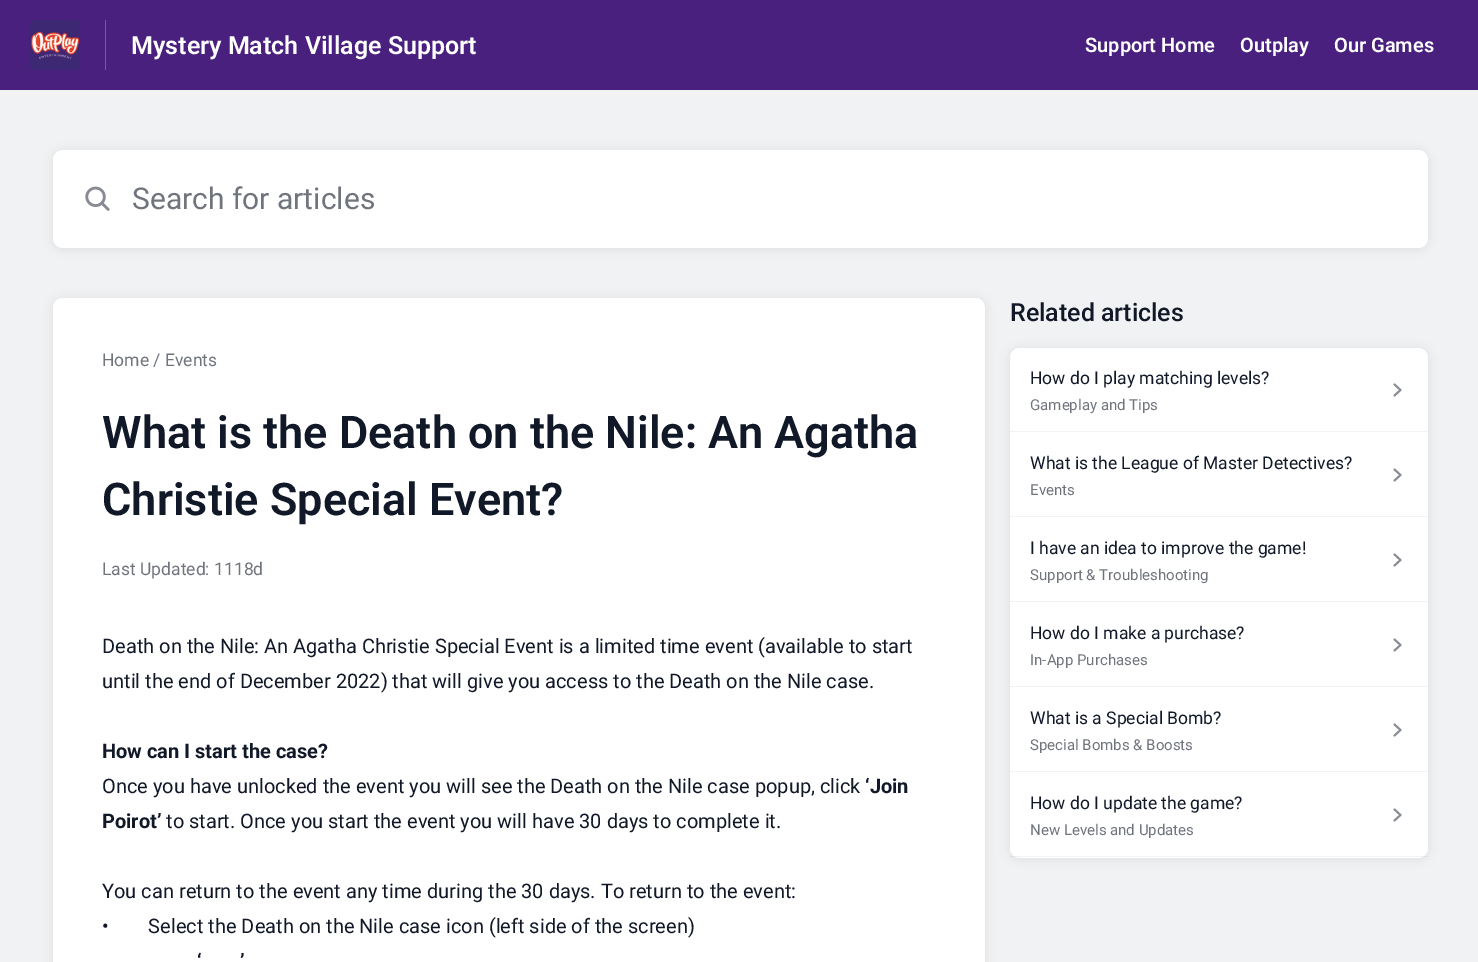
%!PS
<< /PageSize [1478 962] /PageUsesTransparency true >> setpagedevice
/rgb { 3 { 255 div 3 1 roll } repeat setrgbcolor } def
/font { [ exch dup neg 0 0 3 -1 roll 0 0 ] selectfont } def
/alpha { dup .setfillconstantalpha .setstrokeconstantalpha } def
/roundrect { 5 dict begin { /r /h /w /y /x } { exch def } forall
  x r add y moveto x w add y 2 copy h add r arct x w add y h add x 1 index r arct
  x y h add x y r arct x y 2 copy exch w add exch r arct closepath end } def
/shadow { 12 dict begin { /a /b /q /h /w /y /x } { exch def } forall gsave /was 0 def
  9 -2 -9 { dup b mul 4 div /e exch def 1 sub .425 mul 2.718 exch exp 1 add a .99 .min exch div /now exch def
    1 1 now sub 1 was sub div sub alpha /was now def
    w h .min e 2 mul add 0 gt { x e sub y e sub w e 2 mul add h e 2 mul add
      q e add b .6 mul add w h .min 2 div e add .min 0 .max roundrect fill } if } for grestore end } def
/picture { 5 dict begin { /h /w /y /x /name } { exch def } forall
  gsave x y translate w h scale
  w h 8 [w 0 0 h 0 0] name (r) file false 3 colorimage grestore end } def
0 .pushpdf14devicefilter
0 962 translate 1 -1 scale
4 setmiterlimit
240 242 244 rgb
0 0 1478 962 rectfill
74 32 126 rgb
0 0 1478 90 rectfill
119 88 158 rgb
105 20 1 50 rectfill
(img/1.rgb) 30 20 50 50 picture
0 0 0 rgb
53 151 1375 98 10 5 0.08 shadow
255 255 255 rgb
53 150 1375 98 10 roundrect fill
(img/2.rgb) 85 186 25 25 picture
0 0 0 rgb
53 299 932 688 10 5 0.08 shadow
255 255 255 rgb
63 298 moveto 975 298 lineto 980.5 298 985 302.5 985 308 curveto 985 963 lineto 53 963 lineto 53 308 lineto 53 302.5 57.5 298 63 298 curveto closepath fill
0 0 0 rgb
1010 349 418 510 10 5 0.08 shadow
255 255 255 rgb
1010 348 418 510 10 roundrect fill
243 243 244 rgb
1010 431 418 1 rectfill
136 140 147 rgb
1.9 setlinewidth
1 setlinecap
1 setlinejoin
1394.5 384.5 moveto 1400.5 390 lineto 1394.5 395.5 lineto stroke
243 243 244 rgb
1010 516 418 1 rectfill
136 140 147 rgb
1394.5 469.5 moveto 1400.5 475 lineto 1394.5 480.5 lineto stroke
243 243 244 rgb
1010 601 418 1 rectfill
136 140 147 rgb
1394.5 554.5 moveto 1400.5 560 lineto 1394.5 565.5 lineto stroke
243 243 244 rgb
1010 686 418 1 rectfill
136 140 147 rgb
1394.5 639.5 moveto 1400.5 645 lineto 1394.5 650.5 lineto stroke
243 243 244 rgb
1010 771 418 1 rectfill
136 140 147 rgb
1394.5 724.5 moveto 1400.5 730 lineto 1394.5 735.5 lineto stroke
0.05 alpha
17 24 39 rgb
1010 856 418 1 rectfill
1 alpha
136 140 147 rgb
1394.5 809.5 moveto 1400.5 815 lineto 1394.5 820.5 lineto stroke
/Roboto-SemiBold 25 font
255 255 255 rgb
131 54 moveto (Mystery Match Village Support) show
/Roboto-SemiBold 20 font
[
  [(Support Home) 1085 52]
  [(Outplay) 1240 52]
  [(Our Games) 1334 52]
] { aload pop moveto show } forall
/Roboto-Regular 30 font
112 116 125 rgb
132 209 moveto (Search for articles) show
/Roboto-Regular 17.5 font
102 366 moveto (Home / Events) show
/Roboto-SemiBold 45 font
17 24 39 rgb
102 448 moveto (What is the Death on the Nile: An Agatha) show
102 515 moveto (Christie Special Event?) show
/Roboto-Regular 17.5 font
112 116 125 rgb
102 575 moveto (Last Updated: 1118d) show
/Roboto-Regular 20 font
17 24 39 rgb
102 653 moveto (Death on the Nile: An Agatha Christie Special Event is a limited time event \(available to start) show
102 688 moveto (until the end of December 2022\) that will give you access to the Death on the Nile case.) show
/Roboto-Bold 20 font
102 758 moveto (How can I start the case?) show
/Roboto-Regular 20 font
102 793 moveto (Once you have unlocked the event you will see the Death on the Nile case popup, click) show
/Roboto-Bold 20 font
865 793 moveto (‘Join) show
102 828 moveto (Poirot’) show
/Roboto-Regular 20 font
[
  [(to start. Once you start the event you will have 30 days to complete it.) 166 828]
  [(You can return to the event any time during the 30 days. To return to the event:) 102 898]
  [(•        Select the Death on the Nile case icon \(left side of the screen\)) 102 933]
] { aload pop moveto show } forall
/Roboto-Bold 20 font
197 968 moveto (‘) show
240 968 moveto (’) show
/Roboto-Medium 25 font
1010 321 moveto (Related articles) show
/Roboto-Regular 17.5 font
1030 384 moveto (How do I play matching levels?) show
/Roboto-Regular 15 font
112 116 125 rgb
1030 410 moveto (Gameplay and Tips) show
/Roboto-Regular 17.5 font
17 24 39 rgb
1030 469 moveto (What is the League of Master Detectives?) show
/Roboto-Regular 15 font
112 116 125 rgb
1030 495 moveto (Events) show
/Roboto-Regular 17.5 font
17 24 39 rgb
1030 554 moveto (I have an idea to improve the game!) show
/Roboto-Regular 15 font
112 116 125 rgb
1030 580 moveto (Support & Troubleshooting) show
/Roboto-Regular 17.5 font
17 24 39 rgb
1030 639 moveto (How do I make a purchase?) show
/Roboto-Regular 15 font
112 116 125 rgb
1030 665 moveto (In-App Purchases) show
/Roboto-Regular 17.5 font
17 24 39 rgb
1030 724 moveto (What is a Special Bomb?) show
/Roboto-Regular 15 font
112 116 125 rgb
1030 750 moveto (Special Bombs & Boosts) show
/Roboto-Regular 17.5 font
17 24 39 rgb
1030 809 moveto (How do I update the game?) show
/Roboto-Regular 15 font
112 116 125 rgb
1030 835 moveto (New Levels and Updates) show
.poppdf14devicefilter showpage
